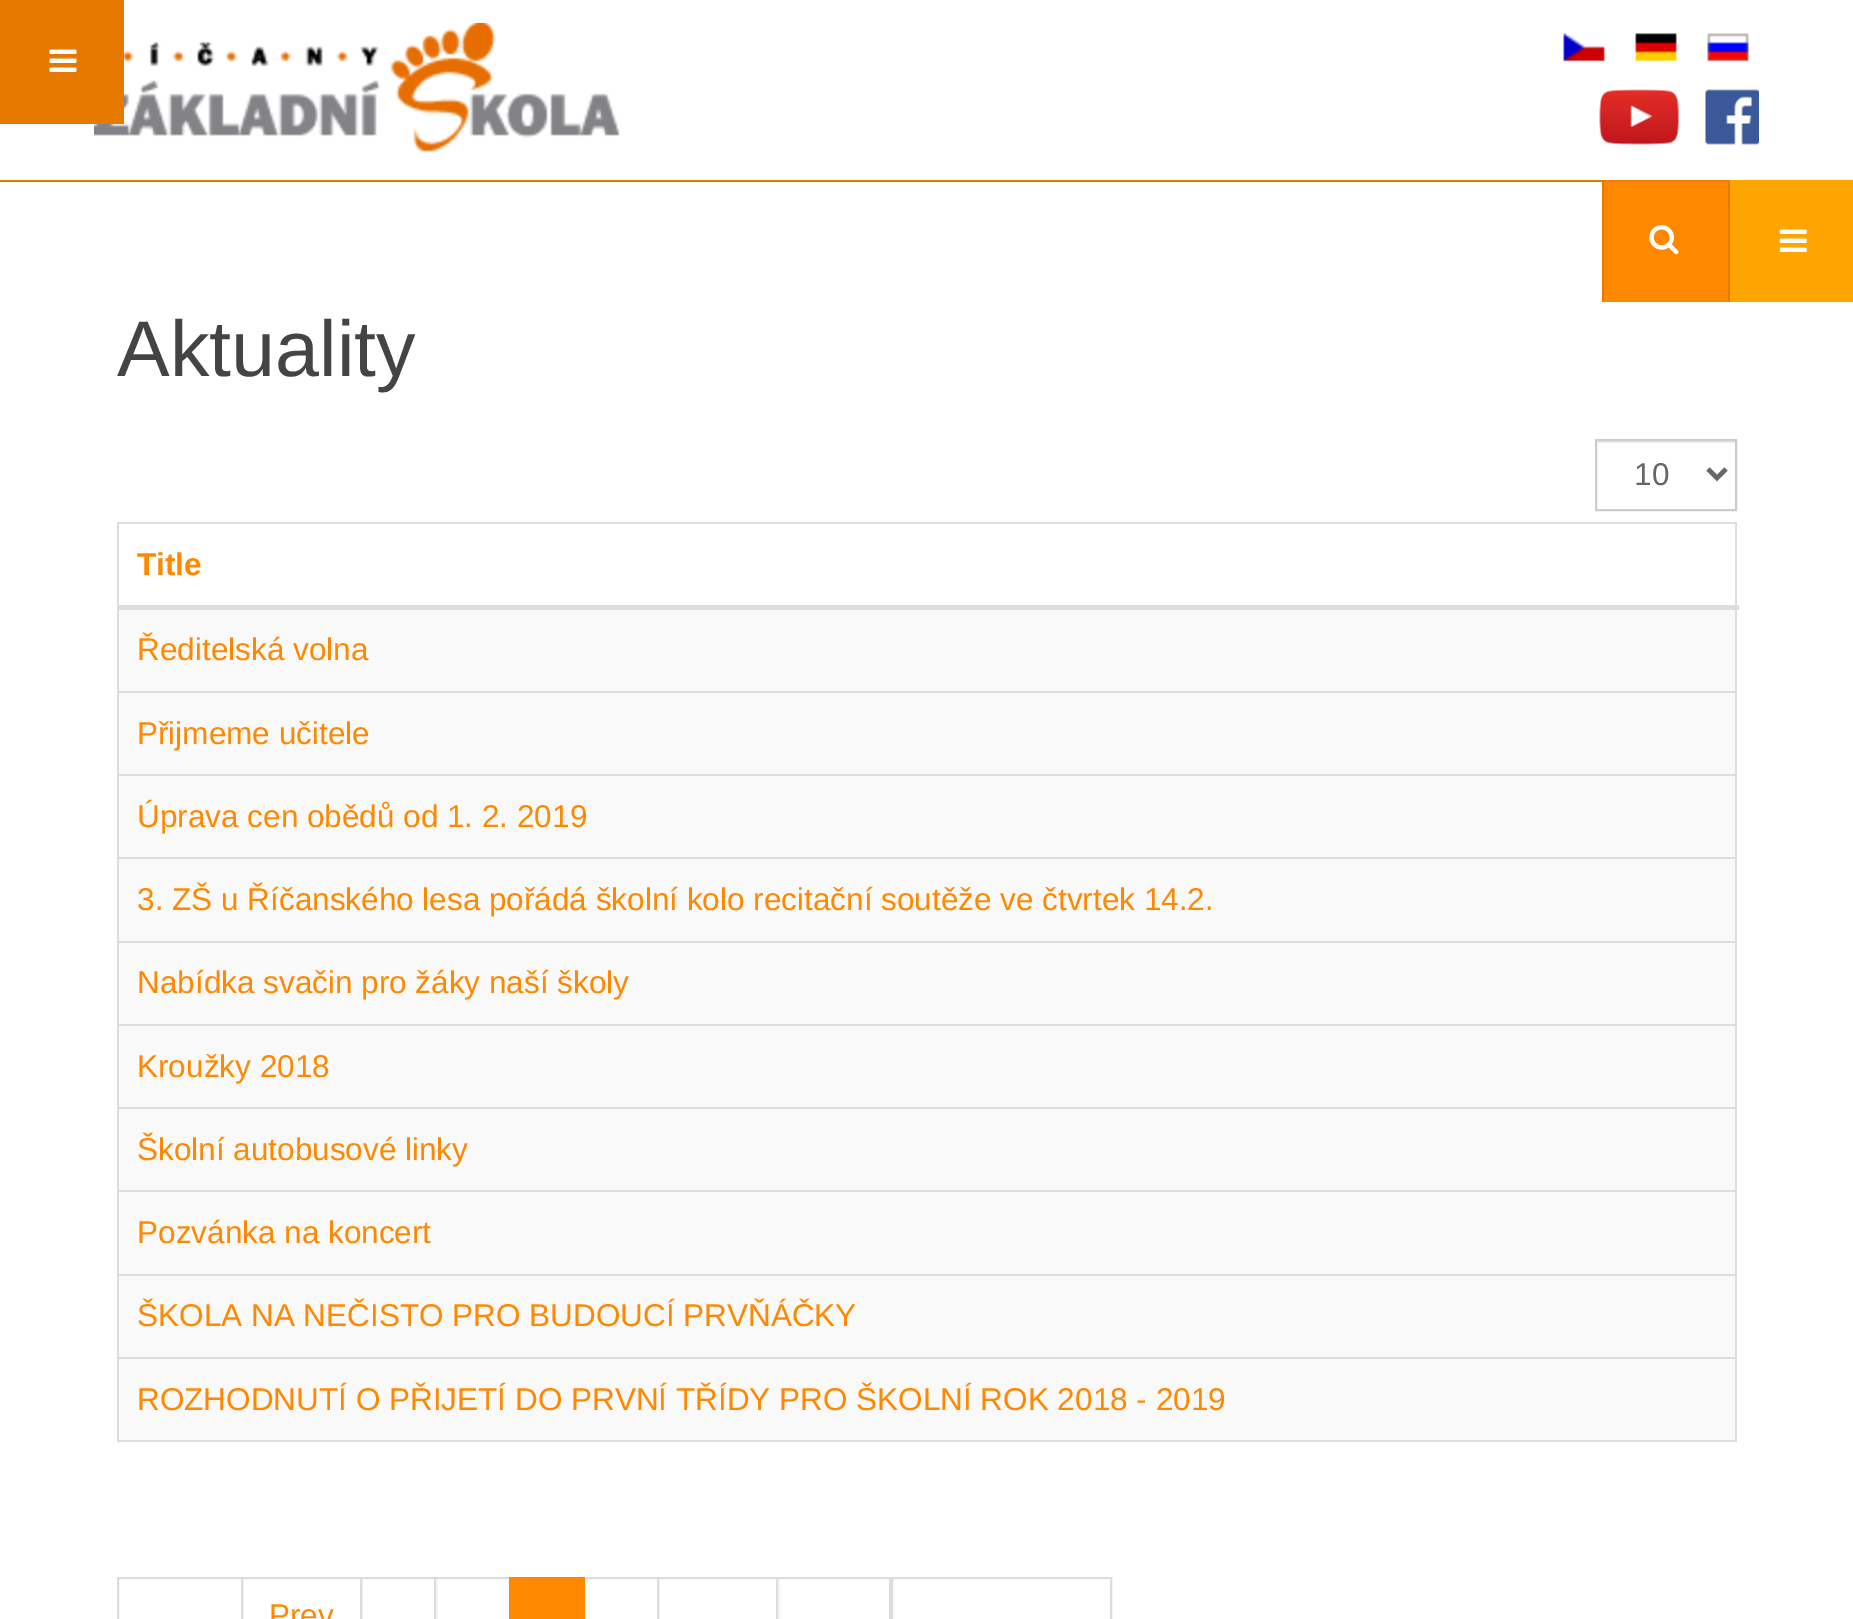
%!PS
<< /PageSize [1853 1619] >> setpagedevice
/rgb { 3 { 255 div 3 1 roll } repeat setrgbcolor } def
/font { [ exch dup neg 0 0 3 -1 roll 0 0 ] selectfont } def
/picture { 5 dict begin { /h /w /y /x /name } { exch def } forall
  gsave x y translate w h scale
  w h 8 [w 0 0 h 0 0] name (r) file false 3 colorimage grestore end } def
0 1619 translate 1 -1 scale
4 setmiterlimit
255 255 255 rgb
0 0 1853 1619 rectfill
230 122 0 rgb
0 180 1602 2 rectfill
(img/2.rgb) 94 23 526 129 picture
0 0 124 124 rectfill
(img/1.rgb) 49 49 28 23 picture
(img/3.rgb) 1563 33 42 29 picture
(img/4.rgb) 1635 33 42 29 picture
(img/5.rgb) 1707 33 42 29 picture
(img/6.rgb) 1599 89 80 56 picture
(img/7.rgb) 1705 89 54 56 picture
[
  [1604 182 124 120 255 136 0]
  [1728 180 2 122 230 122 0]
  [1602 180 2 122 230 122 0]
  [1604 180 124 2 236 126 0]
] { aload pop rgb rectfill } forall
(img/8.rgb) 1649 225 30 30 picture
255 165 0 rgb
1730 180 123 122 rectfill
(img/9.rgb) 1779 229 28 23 picture
236 236 236 rgb
1598 441 137 2 rectfill
204 204 204 rgb
2 setlinewidth
1596 440 140 70 rectstroke
102 102 102 rgb
4.5 setlinewidth
1708 469 moveto 1717 478 lineto 1726 469 lineto stroke
[
  [117 522 1620 2 221 221 221]
  [1735 522 2 920 221 221 221]
  [117 1440 1620 2 221 221 221]
  [117 522 2 920 221 221 221]
  [117 605 1622 5 221 221 221]
  [119 610 1616 81 249 249 249]
  [119 693 1616 81 249 249 249]
  [117 691 1620 2 221 221 221]
  [119 776 1616 81 249 249 249]
  [117 774 1620 2 221 221 221]
  [119 859 1616 82 249 249 249]
  [117 857 1620 2 221 221 221]
  [119 943 1616 81 249 249 249]
  [117 941 1620 2 221 221 221]
  [119 1026 1616 81 249 249 249]
  [117 1024 1620 2 221 221 221]
  [119 1109 1616 81 249 249 249]
  [117 1107 1620 2 221 221 221]
  [119 1192 1616 82 249 249 249]
  [117 1190 1620 2 221 221 221]
  [119 1276 1616 81 249 249 249]
  [117 1274 1620 2 221 221 221]
  [119 1359 1616 81 249 249 249]
  [117 1357 1620 2 221 221 221]
] { aload pop rgb rectfill } forall
2 setlinewidth
118 1578 124 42 rectstroke
242 1578 119 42 rectstroke
361 1578 75 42 rectstroke
255 255 255 rgb
436 1579 1 40 rectfill
221 221 221 rgb
435 1578 75 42 rectstroke
584 1578 74 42 rectstroke
255 136 0 rgb
509 1577 76 42 rectfill
221 221 221 rgb
658 1578 120 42 rectstroke
255 255 255 rgb
778 1579 1 40 rectfill
221 221 221 rgb
777 1578 113 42 rectstroke
892 1578 219 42 rectstroke
/LiberationSans-Regular 79 font
68 68 68 rgb
117 376 moveto (Aktuality) show
/LiberationSans-Regular 31.5 font
102 102 102 rgb
1634 485 moveto (10) show
/LiberationSans-Bold 31.5 font
255 136 0 rgb
137 575 moveto (Title) show
/LiberationSans-Regular 31.5 font
[
  [(Ředitelská volna) 137 660]
  [(Přijmeme učitele) 137 744]
  [(Úprava cen obědů od 1. 2. 2019) 137 827]
  [(3. ZŠ u Říčanského lesa pořádá školní kolo recitační soutěže ve čtvrtek 14.2.) 137 910]
  [(Nabídka svačin pro žáky naší školy) 137 993]
  [(Kroužky 2018) 137 1077]
  [(Školní autobusové linky) 137 1160]
  [(Pozvánka na koncert) 137 1243]
  [(ŠKOLA NA NEČISTO PRO BUDOUCÍ PRVŇÁČKY) 137 1326]
  [(ROZHODNUTÍ O PŘIJETÍ DO PRVNÍ TŘÍDY PRO ŠKOLNÍ ROK 2018 - 2019) 137 1410]
  [(Prev) 269 1626]
] { aload pop moveto show } forall
showpage
